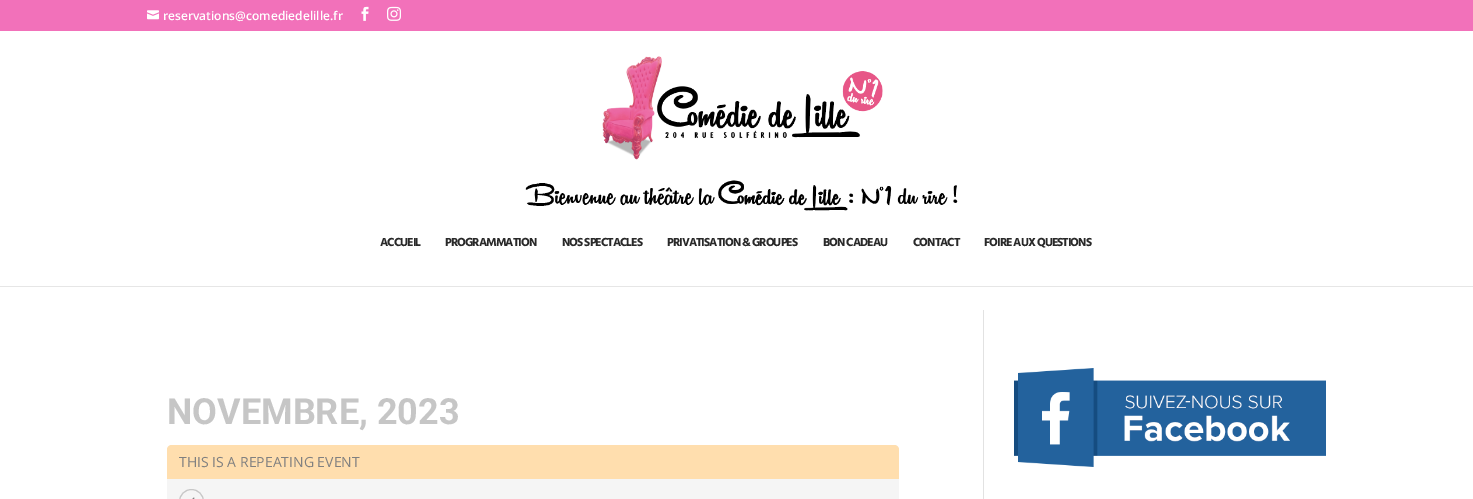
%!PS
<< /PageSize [1473 499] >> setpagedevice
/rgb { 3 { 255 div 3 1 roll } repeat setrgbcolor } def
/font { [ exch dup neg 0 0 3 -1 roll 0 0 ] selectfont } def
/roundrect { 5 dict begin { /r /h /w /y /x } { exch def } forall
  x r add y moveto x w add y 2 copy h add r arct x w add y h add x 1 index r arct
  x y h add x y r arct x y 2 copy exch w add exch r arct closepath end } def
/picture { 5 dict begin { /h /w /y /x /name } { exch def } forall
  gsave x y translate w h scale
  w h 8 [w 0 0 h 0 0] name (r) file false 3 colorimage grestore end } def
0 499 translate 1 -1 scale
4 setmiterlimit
255 255 255 rgb
0 0 1473 499 rectfill
242 113 186 rgb
0 0 1473 31 rectfill
(img/1.rgb) 147 10 12 10 picture
(img/2.rgb) 361 6 8 15 picture
(img/3.rgb) 387 6 14 15 picture
230 230 230 rgb
0 286 1473 1 rectfill
(img/4.rgb) 525 56 433 155 picture
245 245 245 rgb
167 445 732 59 5 roundrect fill
255 222 174 rgb
172 445 moveto 894 445 lineto 897 445 899 447 899 450 curveto 899 479 lineto 167 479 lineto 167 450 lineto 167 447 169 445 172 445 curveto closepath fill
199 199 199 rgb
179.5 489.5 24 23 12 roundrect stroke
(img/5.rgb) 192 497 3 2 picture
(img/6.rgb) 1014 368 312 99 picture
226 226 226 rgb
983 310 1 189 rectfill
/OpenSans-SemiBold 12 font
255 255 255 rgb
163 20 moveto (reservations@comediedelille.fr) show
/Hind-Bold 12 font
41 41 41 rgb
380 246 moveto -1 0 (ACCUEIL) ashow
445 246 moveto -1 0 (PROGRAMMATION) ashow
562 246 moveto -1 0 (NOS SPECTACLES) ashow
667 246 moveto -1 0 (PRIVATISATION & GROUPES) ashow
823 246 moveto -1 0 (BON CADEAU) ashow
913 246 moveto -1 0 (CONTACT) ashow
984 246 moveto -1 0 (FOIRE AUX QUESTIONS) ashow
/Roboto-Bold 36 font
198 198 198 rgb
167 424 moveto (NOVEMBRE, 2023) show
/OpenSans-Regular 14 font
128 128 128 rgb
179 467 moveto (THIS IS A REPEATING EVENT) show
showpage
